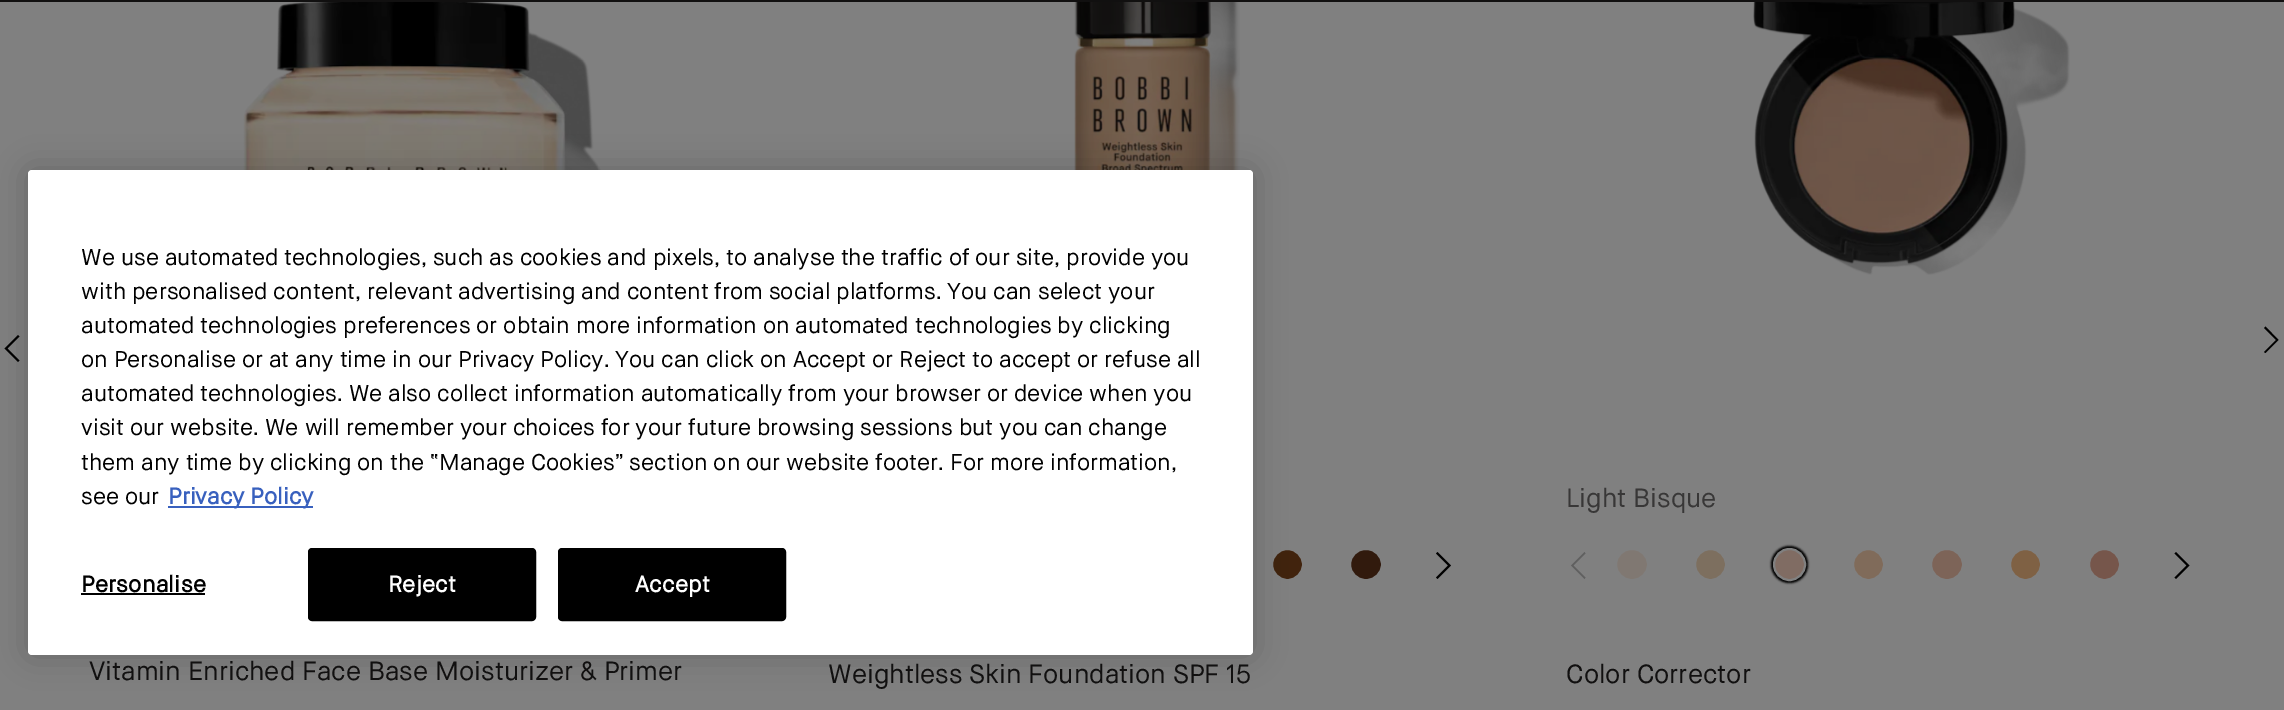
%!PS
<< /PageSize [2284 710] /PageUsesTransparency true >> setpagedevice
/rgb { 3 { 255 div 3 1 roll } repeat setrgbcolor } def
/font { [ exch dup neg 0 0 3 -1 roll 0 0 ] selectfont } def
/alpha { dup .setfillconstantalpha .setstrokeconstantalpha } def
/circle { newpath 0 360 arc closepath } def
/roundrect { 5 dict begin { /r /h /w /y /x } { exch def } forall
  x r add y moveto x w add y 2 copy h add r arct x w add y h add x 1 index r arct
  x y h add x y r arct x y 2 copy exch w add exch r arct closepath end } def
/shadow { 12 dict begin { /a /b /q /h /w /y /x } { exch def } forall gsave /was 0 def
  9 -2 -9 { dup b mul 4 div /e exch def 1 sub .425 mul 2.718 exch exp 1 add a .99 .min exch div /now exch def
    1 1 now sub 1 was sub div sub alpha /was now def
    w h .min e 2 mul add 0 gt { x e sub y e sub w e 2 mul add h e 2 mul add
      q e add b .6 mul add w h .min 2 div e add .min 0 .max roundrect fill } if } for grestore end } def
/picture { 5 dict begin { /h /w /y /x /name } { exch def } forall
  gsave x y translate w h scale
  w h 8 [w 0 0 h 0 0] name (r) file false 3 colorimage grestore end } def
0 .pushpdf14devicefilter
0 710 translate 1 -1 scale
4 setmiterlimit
128 128 128 rgb
0 0 2284 710 rectfill
17 16 16 rgb
0 0 2284 2 rectfill
0 0 0 rgb
18 362 moveto 4.5 348.5 lineto 18 335 lineto 19.5 336.5 lineto 7.5 348.5 lineto 19.5 360.5 lineto closepath fill
(img/1.rgb) 243 2 358 168 picture
(img/2.rgb) 1074 2 166 168 picture
65 35 13 rgb
1287.5 564.5 15.5 circle gsave fill grestore
128 128 128 rgb
2 setlinewidth
stroke
0 0 0 rgb
28 170 1225 485 4 16 0.2 shadow
255 255 255 rgb
28 170 1225 485 4 roundrect fill
56 96 190 rgb
168 506 145 2 rectfill
0 0 0 rgb
81 593 124 2 rectfill
309 549 226 71 3 roundrect gsave fill grestore
stroke
559 549 226 71 3 roundrect gsave fill grestore
stroke
2265.5 326.5 moveto 2278.5 340 lineto 2265.5 353 lineto 2264 352 lineto 2276 340 lineto 2264 328 lineto closepath fill
49 26 13 rgb
1350 549 32 31 15.5 roundrect gsave fill grestore
128 128 128 rgb
stroke
0 0 0 rgb
1437.5 552 moveto 1451 565.5 lineto 1437.5 579 lineto 1436 577.5 lineto 1448 565.5 lineto 1436 553.5 lineto closepath fill
(img/3.rgb) 1753 2 317 273 picture
96 96 96 rgb
1584.5 579 moveto 1571 565.5 lineto 1584.5 552 lineto 1585.5 553.5 lineto 1573.5 565.5 lineto 1585.5 577.5 lineto closepath fill
128 120 114 rgb
1616 549 32 31 15.5 roundrect gsave fill grestore
128 128 128 rgb
stroke
125 111 95 rgb
1710.5 564.5 15.5 circle gsave fill grestore
128 128 128 rgb
stroke
0 0 0 rgb
1771 546 37 37 18.5 1 1 shadow
128 108 99 rgb
1789.5 564.5 15.5 circle gsave fill grestore
128 128 128 rgb
stroke
128 107 90 rgb
1868.5 564.5 15.5 circle gsave fill grestore
128 128 128 rgb
stroke
125 100 88 rgb
1931 549 32 31 15.5 roundrect gsave fill grestore
128 128 128 rgb
stroke
127 97 68 rgb
2025.5 564.5 15.5 circle gsave fill grestore
128 128 128 rgb
stroke
118 86 75 rgb
2104.5 564.5 15.5 circle gsave fill grestore
128 128 128 rgb
stroke
0 0 0 rgb
2176 552 moveto 2189.5 565.5 lineto 2176 579 lineto 2174.5 577.5 lineto 2186.5 565.5 lineto 2174.5 553.5 lineto closepath fill
/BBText-Regular 22.75 font
[
  [(We use automated technologies, such as cookies and pixels, to analyse the traffic of our site, provide you) 81 265]
  [(with personalised content, relevant advertising and content from social platforms. You can select your) 81 299]
  [(automated technologies preferences or obtain more information on automated technologies by clicking) 81 333]
  [(on Personalise or at any time in our Privacy Policy. You can click on Accept or Reject to accept or refuse all) 81 367]
  [(automated technologies. We also collect information automatically from your browser or device when you) 81 401]
  [(visit our website. We will remember your choices for your future browsing sessions but you can change) 81 435]
  [(them any time by clicking on the “Manage Cookies” section on our website footer. For more information,) 81 470]
  [(see our) 81 504]
] { aload pop moveto show } forall
/BBText-Bold 22.75 font
56 96 190 rgb
168 504 moveto (Privacy Policy) show
0 0 0 rgb
81 592 moveto 0.25 0 (Personalise) ashow
255 255 255 rgb
388 592 moveto 0.25 0 (Reject) ashow
635 592 moveto 0.25 0 (Accept) ashow
/BBText-Regular 26.25 font
17 16 16 rgb
89 680 moveto (Vitamin Enriched Face Base Moisturizer & Primer) show
828 683 moveto (Weightless Skin Foundation SPF 15) show
56 55 55 rgb
1566 507 moveto (Light Bisque) show
17 16 16 rgb
1566 683 moveto (Color Corrector) show
.poppdf14devicefilter showpage
